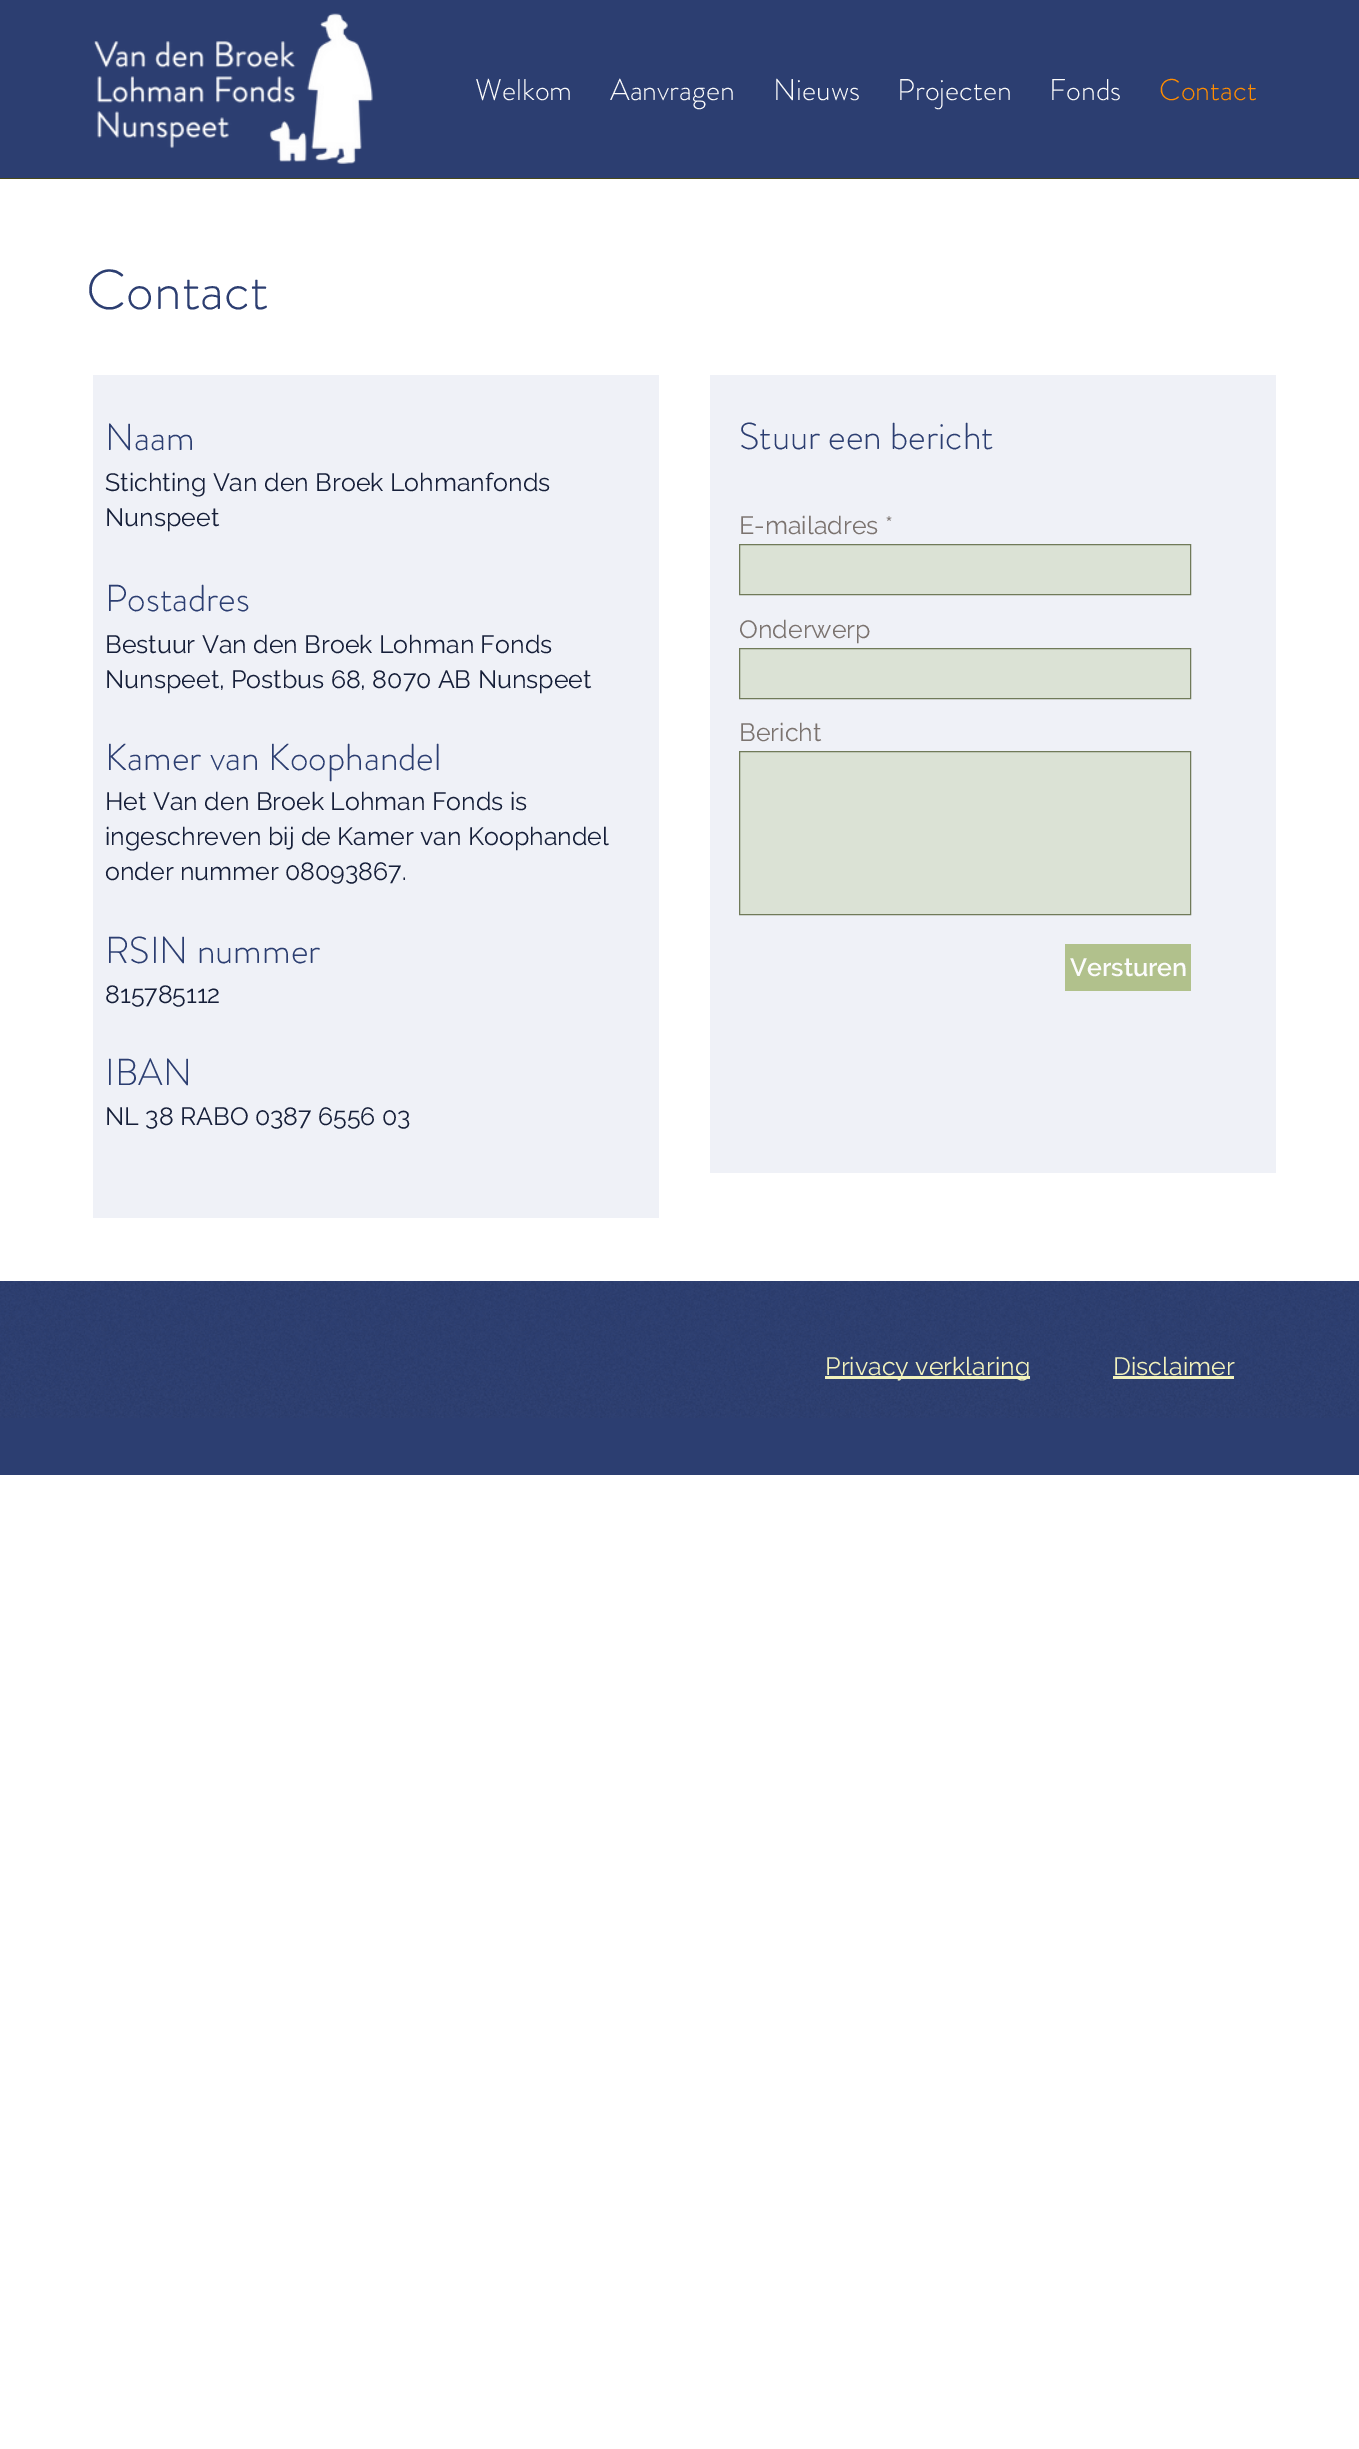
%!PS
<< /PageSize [1359 2449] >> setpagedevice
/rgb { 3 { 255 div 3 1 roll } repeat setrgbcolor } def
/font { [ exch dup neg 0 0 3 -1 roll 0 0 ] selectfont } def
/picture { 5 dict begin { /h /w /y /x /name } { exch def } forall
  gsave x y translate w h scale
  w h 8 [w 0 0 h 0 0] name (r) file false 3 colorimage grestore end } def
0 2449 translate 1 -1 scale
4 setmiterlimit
255 255 255 rgb
0 0 1359 2449 rectfill
44 62 113 rgb
0 0 1359 178 rectfill
72 72 25 rgb
0 178 1359 1 rectfill
(img/1.rgb) 93 13 280 151 picture
239 241 247 rgb
93 375 566 843 rectfill
710 375 566 798 rectfill
219 226 213 rgb
739.5 544.5 moveto 1190.5 544.5 lineto 1190.5 594.5 lineto 739.5 594.5 lineto closepath gsave fill grestore
112 122 89 rgb
stroke
219 226 213 rgb
739.5 648.5 moveto 1190.5 648.5 lineto 1190.5 698.5 lineto 739.5 698.5 lineto closepath gsave fill grestore
112 122 89 rgb
stroke
219 226 213 rgb
739.5 751.5 moveto 1190.5 751.5 lineto 1190.5 914.5 lineto 739.5 914.5 lineto closepath gsave fill grestore
112 122 89 rgb
stroke
177 193 140 rgb
1065 944 126 47 rectfill
44 62 113 rgb
0 1281 1359 194 rectfill
(img/2.rgb) 0 1281 1359 137 picture
242 242 189 rgb
825 1376 205 3 rectfill
1113 1376 121 3 rectfill
/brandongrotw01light-Light 30 font
252 252 252 rgb
[
  [(Welkom) 475 100]
  [(Aanvragen) 610 100]
  [(Nieuws) 773 100]
  [(Projecten) 897 100]
  [(Fonds) 1049 100]
] { aload pop moveto show } forall
255 140 0 rgb
1159 100 moveto (Contact) show
/brandongrotw01light-Light 56 font
44 62 113 rgb
86 309 moveto (Contact) show
/brandongrotw01light-Light 37.5 font
105 450 moveto (Naam) show
/Raleway-Regular 25 font
22 31 57 rgb
105 491 moveto (Stichting Van den Broek Lohmanfonds) show
105 526 moveto (Nunspeet) show
/brandongrotw01light-Light 37.5 font
44 62 113 rgb
105 611 moveto (Postadres) show
/Raleway-Regular 25 font
22 31 57 rgb
105 653 moveto (Bestuur Van den Broek Lohman Fonds) show
105 688 moveto (Nunspeet, Postbus 68, 8070 AB Nunspeet) show
/brandongrotw01light-Light 37.5 font
44 62 113 rgb
105 770 moveto (Kamer van Koophandel) show
/Raleway-Regular 25 font
22 31 57 rgb
[
  [(Het Van den Broek Lohman Fonds is) 105 810]
  [(ingeschreven bij de Kamer van Koophandel) 105 845]
  [(onder nummer 08093867.) 105 880]
] { aload pop moveto show } forall
/brandongrotw01light-Light 37.5 font
44 62 113 rgb
105 963 moveto (RSIN nummer) show
/Raleway-Regular 25 font
22 31 57 rgb
105 1003 moveto (815785112) show
/brandongrotw01light-Light 37.5 font
44 62 113 rgb
105 1085 moveto (IBAN) show
/Raleway-Regular 25 font
22 31 57 rgb
105 1125 moveto (NL 38 RABO 0387 6556 03) show
/brandongrotw01light-Light 37.5 font
44 62 113 rgb
739 449 moveto (Stuur een bericht) show
/Raleway-Regular 25 font
123 115 111 rgb
[
  [(E-mailadres *) 739 534]
  [(Onderwerp) 739 638]
  [(Bericht) 739 741]
] { aload pop moveto show } forall
/Raleway-SemiBold 25 font
252 252 252 rgb
1070 976 moveto (Versturen) show
/Raleway-Regular 25 font
242 242 189 rgb
825 1375 moveto (Privacy verklaring) show
1113 1375 moveto (Disclaimer) show
showpage
